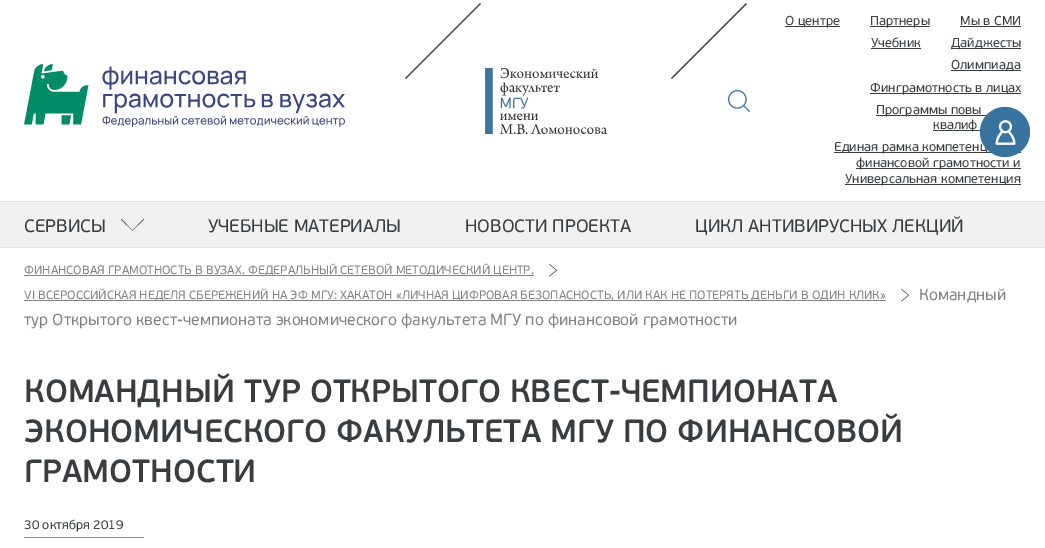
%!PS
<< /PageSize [1045 548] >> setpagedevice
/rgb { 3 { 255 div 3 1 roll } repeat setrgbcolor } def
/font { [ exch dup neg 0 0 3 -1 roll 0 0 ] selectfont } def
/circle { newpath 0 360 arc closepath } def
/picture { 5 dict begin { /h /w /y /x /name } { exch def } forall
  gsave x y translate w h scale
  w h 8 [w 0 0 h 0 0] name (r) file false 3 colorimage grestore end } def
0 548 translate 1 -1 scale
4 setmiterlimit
255 255 255 rgb
0 0 1045 548 rectfill
(img/1.rgb) 24 64 321 63 picture
(img/2.rgb) 485 68 122 66 picture
72 71 72 rgb
480 3 moveto 481 4 lineto 406 79 lineto 405 78 lineto closepath eofill
746 3 moveto 747 4 lineto 672 79 lineto 671 78 lineto closepath eofill
[
  [785 26 55 1 57 61 64]
  [870 26 60 1 57 61 64]
  [960 26 61 1 57 61 64]
  [871 48 50 1 57 61 64]
  [951 48 70 1 57 61 64]
  [951 70 70 1 57 61 64]
  [870 93 151 1 57 61 64]
  [876 115 111 1 57 61 64]
  [933 130 48 1 57 61 64]
  [834 152 187 1 57 61 64]
  [856 168 165 1 57 61 64]
  [845 184 176 1 57 61 64]
] { aload pop rgb rectfill } forall
(img/3.rgb) 728 90 22 22 picture
[
  [0 202 1045 45 241 241 241]
  [0 201 1045 1 226 226 226]
  [0 247 1045 1 226 226 226]
] { aload pop rgb rectfill } forall
71 71 71 rgb
121.5 219 moveto 121 219.5 lineto 132.5 230.5 lineto 144 219.5 lineto 143.5 219 lineto 132.5 230.5 lineto closepath fill
131 131 131 rgb
24 275 510 1 rectfill
(img/5.rgb) 549 264 8 13 picture
24 300 862 1 rectfill
(img/5.rgb) 901 289 8 13 picture
24 537 120 1 rectfill
/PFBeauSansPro-Regular 13 font
57 61 64 rgb
[
  [(О центре) 785 25]
  [(Партнеры) 870 25]
  [(Мы в СМИ) 960 25]
  [(Учебник) 871 47]
  [(Дайджесты) 951 47]
  [(Олимпиада) 951 69]
  [(Финграмотность в лицах) 870 92]
  [(Программы повы) 876 114]
  [(квалиф) 933 129]
  [(Единая рамка компетенц) 834 151]
  [(финансовой грамотности и) 856 167]
  [(Универсальная компетенция) 845 183]
] { aload pop moveto show } forall
56 114 158 rgb
1005 132 25 circle fill
(img/4.rgb) 995 120 21 25 picture
/PFBeauSansPro-Regular 18 font
57 61 64 rgb
[
  [(СЕРВИСЫ) 24 232]
  [(УЧЕБНЫЕ МАТЕРИАЛЫ) 208 232]
  [(НОВОСТИ ПРОЕКТА) 465 232]
  [(ЦИКЛ АНТИВИРУСНЫХ ЛЕКЦИЙ) 695 232]
] { aload pop moveto show } forall
/PFBeauSansPro-Regular 12 font
131 131 131 rgb
24 274 moveto (ФИНАНСОВАЯ ГРАМОТНОСТЬ В ВУЗАХ. ФЕДЕРАЛЬНЫЙ СЕТЕВОЙ МЕТОДИЧЕСКИЙ ЦЕНТР.) show
24 299 moveto (VI ВСЕРОССИЙСКАЯ НЕДЕЛЯ СБЕРЕЖЕНИЙ НА ЭФ МГУ: ХАКАТОН «ЛИЧНАЯ ЦИФРОВАЯ БЕЗОПАСНОСТЬ, ИЛИ КАК НЕ ПОТЕРЯТЬ ДЕНЬГИ В ОДИН КЛИК») show
/PFBeauSansPro-Regular 16 font
919 300 moveto (Командный) show
24 325 moveto (тур Открытого квест-чемпионата экономического факультета МГУ по финансовой грамотности) show
/PFBeauSansPro-SemiBold 32 font
57 61 64 rgb
[
  [(КОМАНДНЫЙ ТУР ОТКРЫТОГО КВЕСТ-ЧЕМПИОНАТА) 24 402]
  [(ЭКОНОМИЧЕСКОГО ФАКУЛЬТЕТА МГУ ПО ФИНАНСОВОЙ) 24 442]
  [(ГРАМОТНОСТИ) 24 482]
] { aload pop moveto show } forall
/PFBeauSansPro-Regular 12.75 font
24 529 moveto (30 октября 2019) show
showpage
